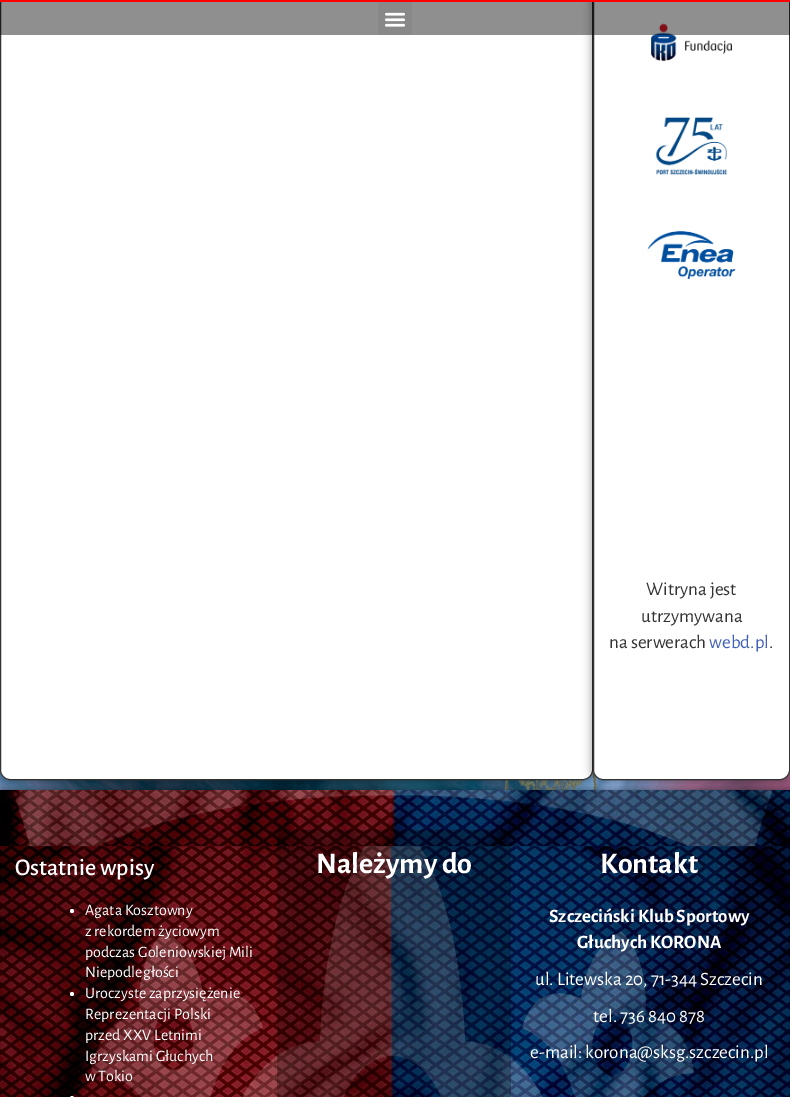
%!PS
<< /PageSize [790 1097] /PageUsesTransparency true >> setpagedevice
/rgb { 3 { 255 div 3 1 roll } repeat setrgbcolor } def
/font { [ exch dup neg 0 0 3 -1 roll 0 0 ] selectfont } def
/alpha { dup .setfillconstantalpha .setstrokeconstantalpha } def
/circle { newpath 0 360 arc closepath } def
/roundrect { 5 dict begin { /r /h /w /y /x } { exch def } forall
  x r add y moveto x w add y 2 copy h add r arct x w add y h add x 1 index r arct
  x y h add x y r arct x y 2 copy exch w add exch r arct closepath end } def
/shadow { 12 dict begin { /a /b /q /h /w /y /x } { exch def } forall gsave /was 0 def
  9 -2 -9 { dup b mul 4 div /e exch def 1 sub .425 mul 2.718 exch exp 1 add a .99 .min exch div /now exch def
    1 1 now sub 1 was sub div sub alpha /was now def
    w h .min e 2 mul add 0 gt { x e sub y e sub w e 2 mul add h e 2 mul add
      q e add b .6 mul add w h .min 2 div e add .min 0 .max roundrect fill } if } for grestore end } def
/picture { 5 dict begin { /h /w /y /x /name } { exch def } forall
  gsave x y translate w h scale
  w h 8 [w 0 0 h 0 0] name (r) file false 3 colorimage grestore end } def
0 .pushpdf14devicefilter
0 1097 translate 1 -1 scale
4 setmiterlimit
255 255 255 rgb
0 0 790 1097 rectfill
(img/1.rgb) 0 770 790 20 picture
0 0 0 rgb
0 -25 593 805 10 5 0.5 shadow
255 255 255 rgb
0.5 -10.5 592 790 9.5 roundrect gsave fill grestore
51 51 51 rgb
stroke
0 0 0 rgb
593 -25 197 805 10 5 0.5 shadow
255 255 255 rgb
593.5 -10.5 196 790 9.5 roundrect gsave fill grestore
51 51 51 rgb
stroke
(img/3.rgb) 651 23 82 38 picture
0.44 alpha
0 0 0 rgb
0 2 790 33 rectfill
1 alpha
255 0 0 rgb
0 0 790 2 rectfill
136 136 136 rgb
378 2 34 33 3 roundrect fill
(img/2.rgb) 385 12 20 15 picture
(img/4.rgb) 655 117 73 58 picture
(img/5.rgb) 647 231 89 48 picture
0 0 0 rgb
0 790 790 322 0 5 0.5 shadow
(img/6.rgb) 0 790 790 307 picture
255 255 255 rgb
72 911 2 circle fill
72 994 2 circle fill
70 1096 4 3 2 roundrect fill
0.28 alpha
0 0 0 rgb
277 830 234 267 rectfill
/AlegreyaSans-Regular 19 font
1 alpha
51 51 51 rgb
[
  [(Witryna jest) 646 595]
  [(utrzymywana) 641 622]
  [(na serwerach) 609 648]
] { aload pop moveto show } forall
65 96 185 rgb
709 648 moveto (webd.pl) show
51 51 51 rgb
769 648 moveto (.) show
/AlegreyaSans-Medium 24 font
255 255 255 rgb
15 875 moveto (Ostatnie wpisy) show
/AlegreyaSans-Regular 16 font
[
  [(Agata Kosztowny) 85 915]
  [(z rekordem życiowym) 85 936]
  [(podczas Goleniowskiej Mili) 85 957]
  [(Niepodległości) 85 977]
  [(Uroczyste zaprzysiężenie) 85 998]
  [(Reprezentacji Polski) 85 1019]
  [(przed XXV Letnimi) 85 1040]
  [(Igrzyskami Głuchych) 85 1061]
  [(w Tokio) 85 1081]
] { aload pop moveto show } forall
/AlegreyaSans-Bold 30 font
316 873 moveto (Należymy do) show
600 873 moveto (Kontakt) show
/AlegreyaSans-Bold 19 font
549 922 moveto (Szczeciński Klub Sportowy) show
577 948 moveto (Głuchych KORONA) show
/AlegreyaSans-Regular 19 font
[
  [(ul. Litewska 20, 71-344 Szczecin) 535 985]
  [(tel. 736 840 878) 593 1022]
  [(e-mail: korona@sksg.szczecin.pl) 530 1058]
] { aload pop moveto show } forall
.poppdf14devicefilter showpage
